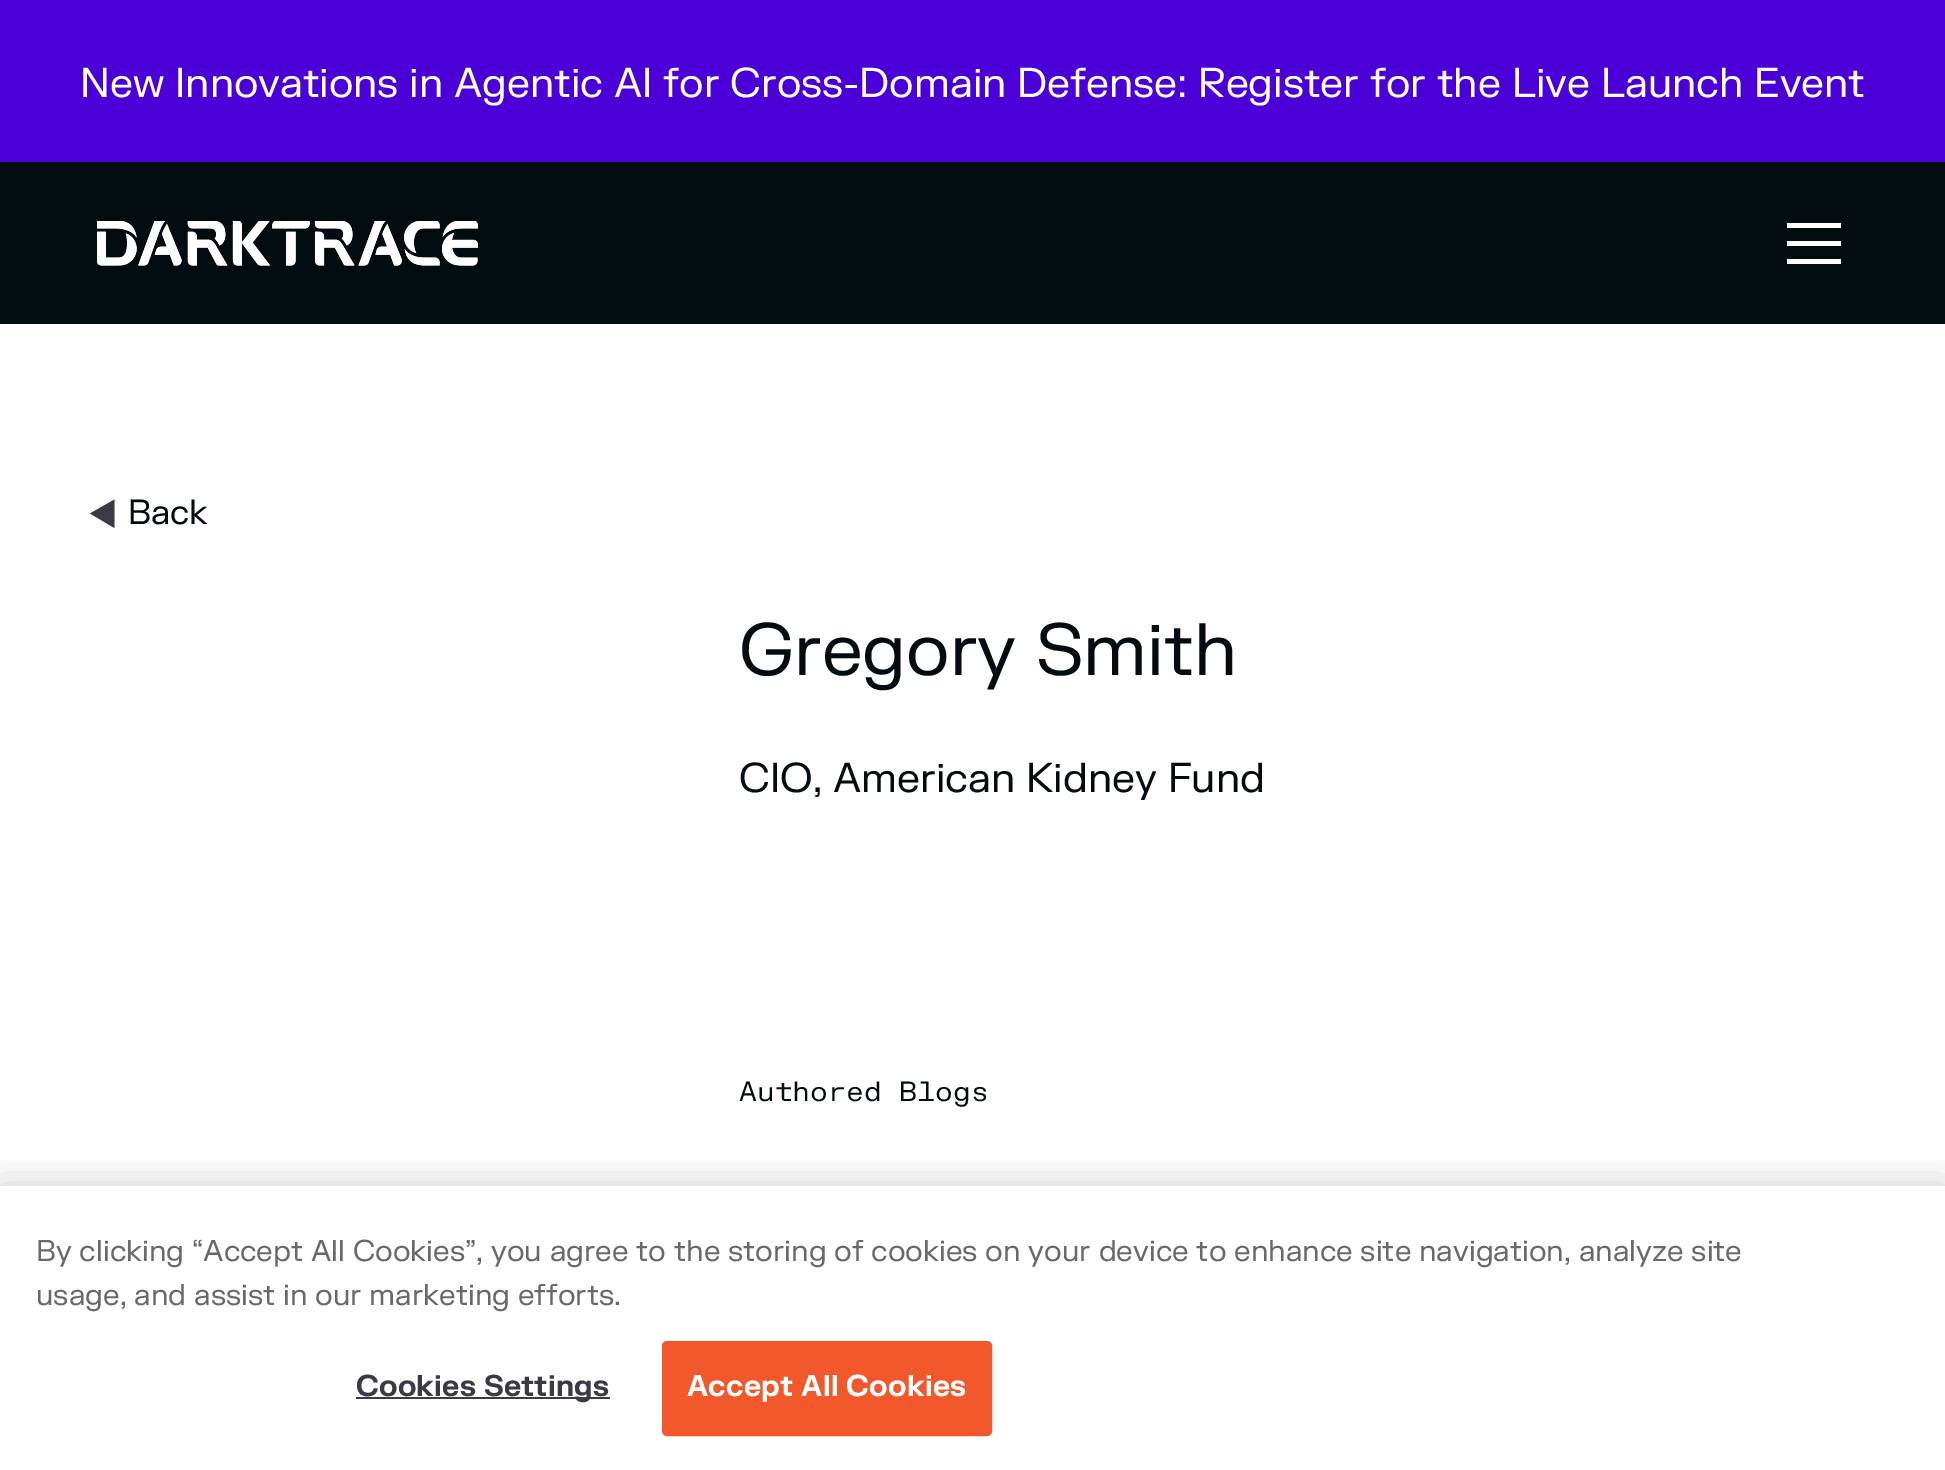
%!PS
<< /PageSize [1945 1470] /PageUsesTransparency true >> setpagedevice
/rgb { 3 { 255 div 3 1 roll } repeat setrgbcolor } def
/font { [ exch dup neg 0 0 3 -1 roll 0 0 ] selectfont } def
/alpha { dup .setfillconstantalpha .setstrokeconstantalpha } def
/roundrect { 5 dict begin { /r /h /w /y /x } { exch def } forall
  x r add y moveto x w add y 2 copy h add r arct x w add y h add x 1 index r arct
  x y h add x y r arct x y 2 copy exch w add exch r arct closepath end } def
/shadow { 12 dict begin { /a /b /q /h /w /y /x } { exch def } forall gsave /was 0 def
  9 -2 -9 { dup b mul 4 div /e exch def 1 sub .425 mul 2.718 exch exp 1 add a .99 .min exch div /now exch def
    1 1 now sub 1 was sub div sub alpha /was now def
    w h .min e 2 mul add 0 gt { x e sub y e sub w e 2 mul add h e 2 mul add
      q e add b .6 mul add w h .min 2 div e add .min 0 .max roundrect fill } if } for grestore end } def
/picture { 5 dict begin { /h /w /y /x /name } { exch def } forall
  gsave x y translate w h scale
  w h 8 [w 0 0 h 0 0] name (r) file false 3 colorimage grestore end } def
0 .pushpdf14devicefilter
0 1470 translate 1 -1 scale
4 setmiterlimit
255 255 255 rgb
0 0 1945 1470 rectfill
75 0 215 rgb
0 0 1945 162 rectfill
3 13 17 rgb
0 162 1945 162 rectfill
(img/1.rgb) 97 221 381 45 picture
[
  [1787 223 54 5 255 255 255]
  [1787 241 54 5 255 255 255]
  [1787 259 54 5 255 255 255]
] { aload pop rgb rectfill } forall
59 59 72 rgb
90 513.5 moveto 114.5 499.5 lineto 114.5 528 lineto closepath fill
gsave
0 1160 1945 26 rectclip
0 0 0 rgb
0 1186 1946 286 0 20 0.2 shadow
grestore
356 1397 254 2 rectfill
242 88 44 rgb
663 1342 328 93 4 roundrect gsave fill grestore
2 setlinewidth
stroke
/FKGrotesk-Regular 40.5 font
255 255 255 rgb
80 97 moveto (New Innovations in Agentic AI for Cross-Domain Defense: Register for the Live Launch Event) show
/FKGrotesk-Regular 34 font
3 13 17 rgb
128 524 moveto (Back) show
/FKGrotesk-Regular 72 font
739 675 moveto (Gregory Smith) show
/FKGrotesk-Regular 40.5 font
739 792 moveto (CIO, American Kidney Fund) show
/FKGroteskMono-Regular 27 font
739 1101 moveto (Authored Blogs) show
/FKGrotesk-Regular 29.27 font
105 105 105 rgb
36 1261 moveto (By clicking “Accept All Cookies”, you agree to the storing of cookies on your device to enhance site navigation, analyze site) show
36 1305 moveto (usage, and assist in our marketing efforts.) show
/FKGrotesk-Bold 29.27 font
59 59 72 rgb
356 1396 moveto 0.25 0 (Cookies Settings) ashow
255 255 255 rgb
687 1396 moveto 0.25 0 (Accept All Cookies) ashow
.poppdf14devicefilter showpage
